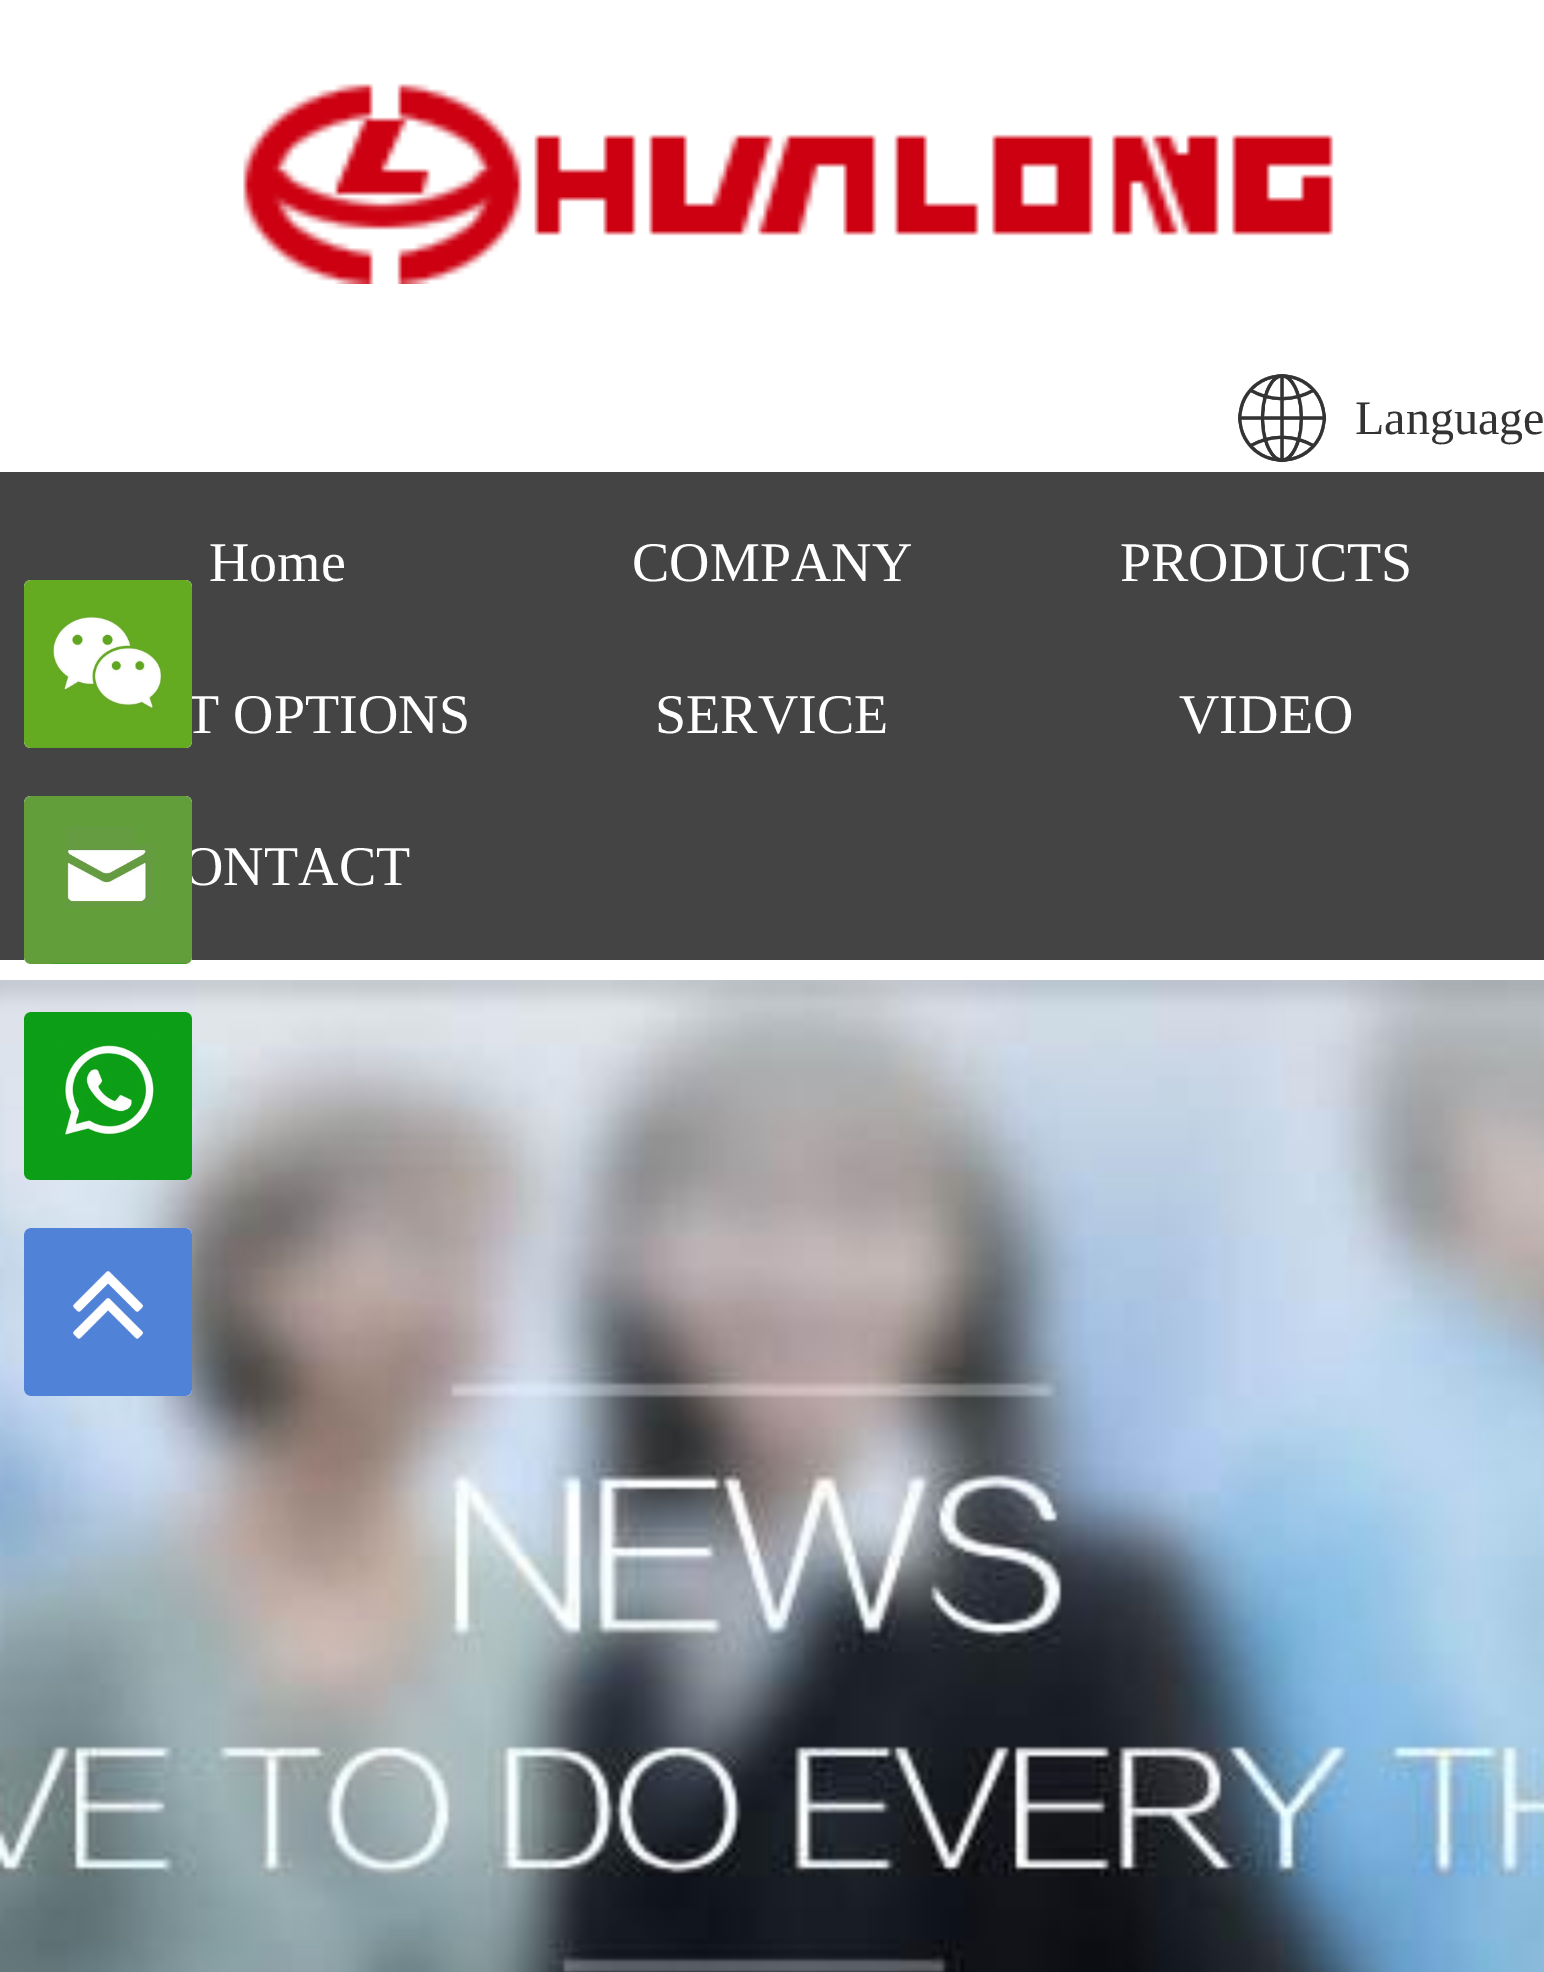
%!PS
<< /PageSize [1544 1972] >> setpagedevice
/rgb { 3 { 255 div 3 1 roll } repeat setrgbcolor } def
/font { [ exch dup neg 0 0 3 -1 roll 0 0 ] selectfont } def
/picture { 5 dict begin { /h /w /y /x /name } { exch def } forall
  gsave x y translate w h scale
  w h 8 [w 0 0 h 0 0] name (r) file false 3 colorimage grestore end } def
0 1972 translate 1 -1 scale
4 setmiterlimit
255 255 255 rgb
0 0 1544 1972 rectfill
(img/7.rgb) 0 980 1544 992 picture
(img/3.rgb) 24 1012 168 168 picture
(img/4.rgb) 24 1228 168 168 picture
(img/5.rgb) 243 83 1091 201 picture
(img/6.rgb) 1238 374 89 89 picture
68 68 68 rgb
0 472 1544 488 rectfill
/LiberationSerif-Regular 48 font
51 51 51 rgb
1355 434 moveto (Language) show
/LiberationSerif-Regular 56 font
255 255 255 rgb
[
  [(Home) 209 581]
  [(COMPANY) 632 581]
  [(PRODUCTS) 1120 581]
  [(T OPTIONS) 185 733]
] { aload pop moveto show } forall
(img/1.rgb) 24 580 168 168 picture
[
  [(SERVICE) 655 733]
  [(VIDEO) 1179 733]
  [(ONTACT) 183 885]
] { aload pop moveto show } forall
(img/2.rgb) 24 796 168 168 picture
showpage
